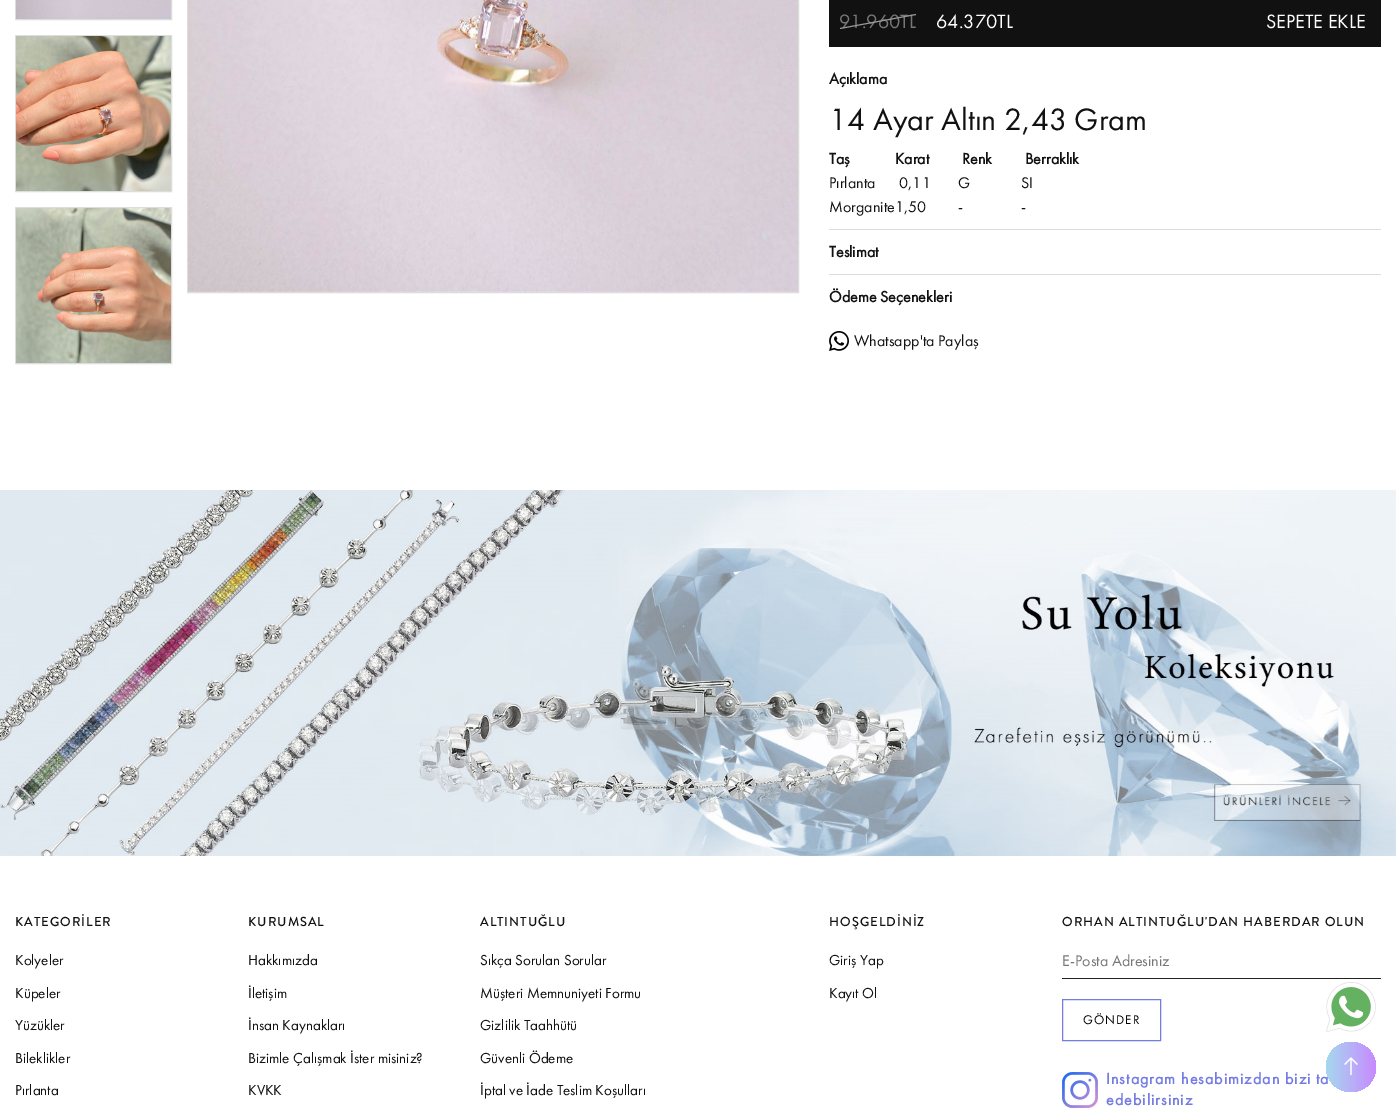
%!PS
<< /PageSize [1396 1112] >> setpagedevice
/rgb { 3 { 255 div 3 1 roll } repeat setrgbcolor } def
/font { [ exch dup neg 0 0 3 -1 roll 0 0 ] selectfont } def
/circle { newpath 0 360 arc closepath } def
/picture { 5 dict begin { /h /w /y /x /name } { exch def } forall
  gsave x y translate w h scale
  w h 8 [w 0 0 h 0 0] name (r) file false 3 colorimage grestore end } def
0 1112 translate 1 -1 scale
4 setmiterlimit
255 255 255 rgb
0 0 1396 1112 rectfill
221 221 221 rgb
15.5 -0.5 156 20 rectstroke
(img/1.rgb) 16 0 155 19 picture
15.5 35.5 156 156 rectstroke
(img/2.rgb) 16 36 155 155 picture
15.5 207.5 156 156 rectstroke
(img/3.rgb) 16 208 155 155 picture
187.5 -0.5 611 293 rectstroke
(img/4.rgb) 188 0 610 292 picture
[
  [829 0 552 47 17 17 17]
  [829 229 552 1 221 221 221]
  [829 274 552 1 221 221 221]
] { aload pop rgb rectfill } forall
(img/5.rgb) 829 331 20 20 picture
(img/6.rgb) 0 490 1396 366 picture
34 34 34 rgb
1062 978 319 1 rectfill
117 125 228 rgb
1062.5 999.5 98 41 rectstroke
(img/7.rgb) 1062 1072 36 36 picture
(img/8.rgb) 1326 982 50 50 picture
/FuturaPT-Regular 20 font
119 119 119 rgb
839 28 moveto (91.960TL) show
153 153 153 rgb
840 28 moveto 916 14 lineto 916 15 lineto 840 29 lineto closepath fill
255 255 255 rgb
936 28 moveto (64.370TL) show
1266 28 moveto (SEPETE EKLE) show
/FuturaPT-Bold 16 font
17 17 17 rgb
829 84 moveto (Açıklama) show
/FuturaPT-Regular 32 font
829 130 moveto (14 Ayar Altın 2,43 Gram) show
/FuturaPT-Bold 16 font
[
  [(Taş) 829 164]
  [(Karat) 895 164]
  [(Renk) 962 164]
  [(Berraklık) 1025 164]
] { aload pop moveto show } forall
/FuturaPT-Regular 16 font
[
  [(Pırlanta) 829 188]
  [(0,11) 899 188]
  [(G) 958 188]
  [(SI) 1021 188]
  [(Morganite1,50) 829 212]
  [(-) 958 212]
  [(-) 1021 212]
] { aload pop moveto show } forall
/FuturaPT-Bold 16 font
829 257 moveto (Teslimat) show
829 302 moveto (Ödeme Seçenekleri) show
/FuturaPT-Regular 16 font
854 346 moveto (Whatsapp'ta Paylaş) show
/BrandonGrotesque-Medium 13 font
15 926 moveto 1 0 (KATEGORİLER) ashow
/FuturaPT-Regular 15 font
[
  [(Kolyeler) 15 965]
  [(Küpeler) 15 998]
  [(Yüzükler) 15 1030]
  [(Bileklikler) 15 1063]
  [(Pırlanta) 15 1095]
] { aload pop moveto show } forall
/BrandonGrotesque-Medium 13 font
248 926 moveto 1 0 (KURUMSAL) ashow
/FuturaPT-Regular 15 font
[
  [(Hakkımızda) 248 965]
  [(İletişim) 248 998]
  [(İnsan Kaynakları) 248 1030]
  [(Bizimle Çalışmak İster misiniz?) 248 1063]
  [(KVKK) 248 1095]
] { aload pop moveto show } forall
/BrandonGrotesque-Medium 13 font
480 926 moveto 1 0 (ALTINTUĞLU) ashow
/FuturaPT-Regular 15 font
[
  [(Sıkça Sorulan Sorular) 480 965]
  [(Müşteri Memnuniyeti Formu) 480 998]
  [(Gizlilik Taahhütü) 480 1030]
  [(Güvenli Ödeme) 480 1063]
  [(İptal ve İade Teslim Koşulları) 480 1095]
] { aload pop moveto show } forall
/BrandonGrotesque-Medium 13 font
829 926 moveto 1 0 (HOŞGELDİNİZ) ashow
/FuturaPT-Regular 15 font
829 965 moveto (Giriş Yap) show
829 998 moveto (Kayıt Ol) show
/BrandonGrotesque-Medium 13 font
1062 926 moveto 1 0 (ORHAN ALTINTUĞLU'DAN HABERDAR OLUN) ashow
/FuturaPT-Regular 16 font
119 119 119 rgb
1062 966 moveto (E-Posta Adresiniz) show
/FuturaPT-Regular 13 font
0 0 0 rgb
1083 1024 moveto 1 0 (GÖNDER) ashow
/FuturaPT-Bold 16 font
117 125 228 rgb
1106 1084 moveto 1 0 (Instagram hesabimizdan bizi ta) ashow
1106 1105 moveto 1 0 (edebilirsiniz) ashow
gsave 1351 1067 25 circle clip newpath
<< /ShadingType 2 /ColorSpace /DeviceRGB /Coords [1326 1067 1376 1067] /Extend [true true] /Function << /FunctionType 2 /Domain [0 1] /C0 [0.651 0.847 0.937] /C1 [0.78 0.541 1] /N 1 >> >> shfill grestore
(img/9.rgb) 1344 1057 14 18 picture
showpage
